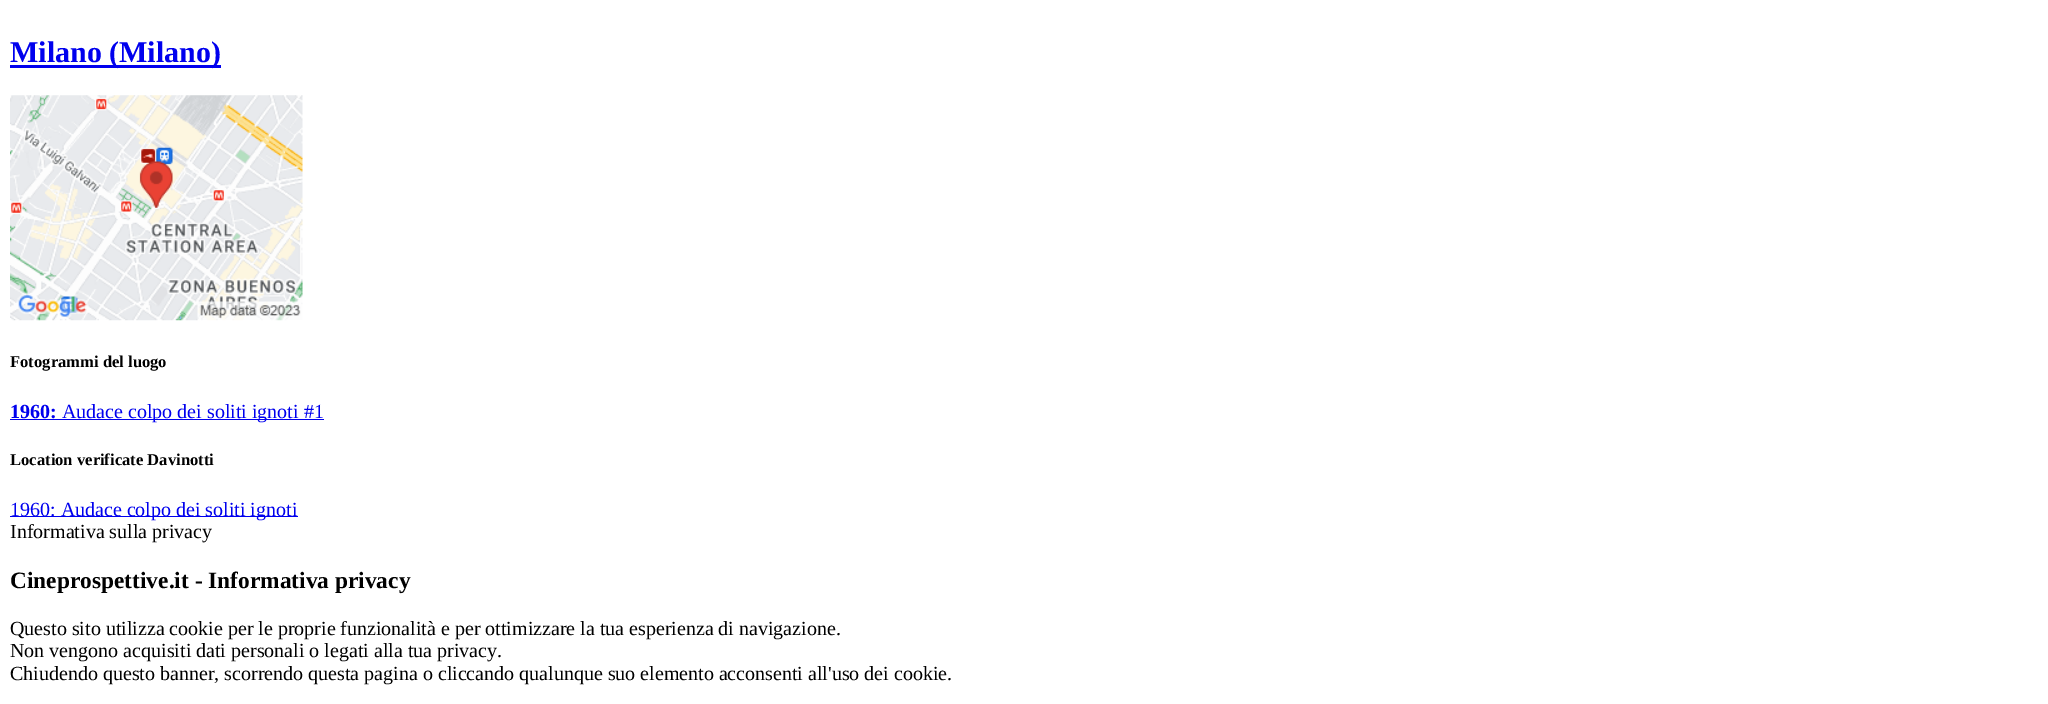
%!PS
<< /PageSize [2048 704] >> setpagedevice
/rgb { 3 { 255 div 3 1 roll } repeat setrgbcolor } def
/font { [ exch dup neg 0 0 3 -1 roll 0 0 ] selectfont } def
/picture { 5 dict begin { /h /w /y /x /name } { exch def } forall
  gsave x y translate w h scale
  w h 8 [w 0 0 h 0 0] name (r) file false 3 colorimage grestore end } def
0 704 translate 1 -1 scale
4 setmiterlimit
255 255 255 rgb
0 0 2048 704 rectfill
0 0 238 rgb
10 65 211 3 rectfill
(img/1.rgb) 10 95 293 226 picture
10 419 314 1 rectfill
10 516 288 1 rectfill
/LiberationSerif-Bold 30 font
10 62 moveto (Milano \(Milano\)) show
/LiberationSerif-Bold 16.6 font
0 0 0 rgb
10 367 moveto (Fotogrammi del luogo) show
/LiberationSerif-Bold 20 font
0 0 238 rgb
10 418 moveto (1960:) show
/LiberationSerif-Regular 20 font
62 418 moveto (Audace colpo dei soliti ignoti #1) show
/LiberationSerif-Bold 16.6 font
0 0 0 rgb
10 465 moveto (Location verificate Davinotti) show
/LiberationSerif-Regular 20 font
0 0 238 rgb
10 516 moveto (1960: Audace colpo dei soliti ignoti) show
0 0 0 rgb
10 538 moveto (Informativa sulla privacy) show
/LiberationSerif-Bold 23.4 font
10 588 moveto (Cineprospettive.it - Informativa privacy) show
/LiberationSerif-Regular 20 font
[
  [(Questo sito utilizza cookie per le proprie funzionalità e per ottimizzare la tua esperienza di navigazione.) 10 635]
  [(Non vengono acquisiti dati personali o legati alla tua privacy.) 10 657]
  [(Chiudendo questo banner, scorrendo questa pagina o cliccando qualunque suo elemento acconsenti all'uso dei cookie.) 10 680]
] { aload pop moveto show } forall
showpage
